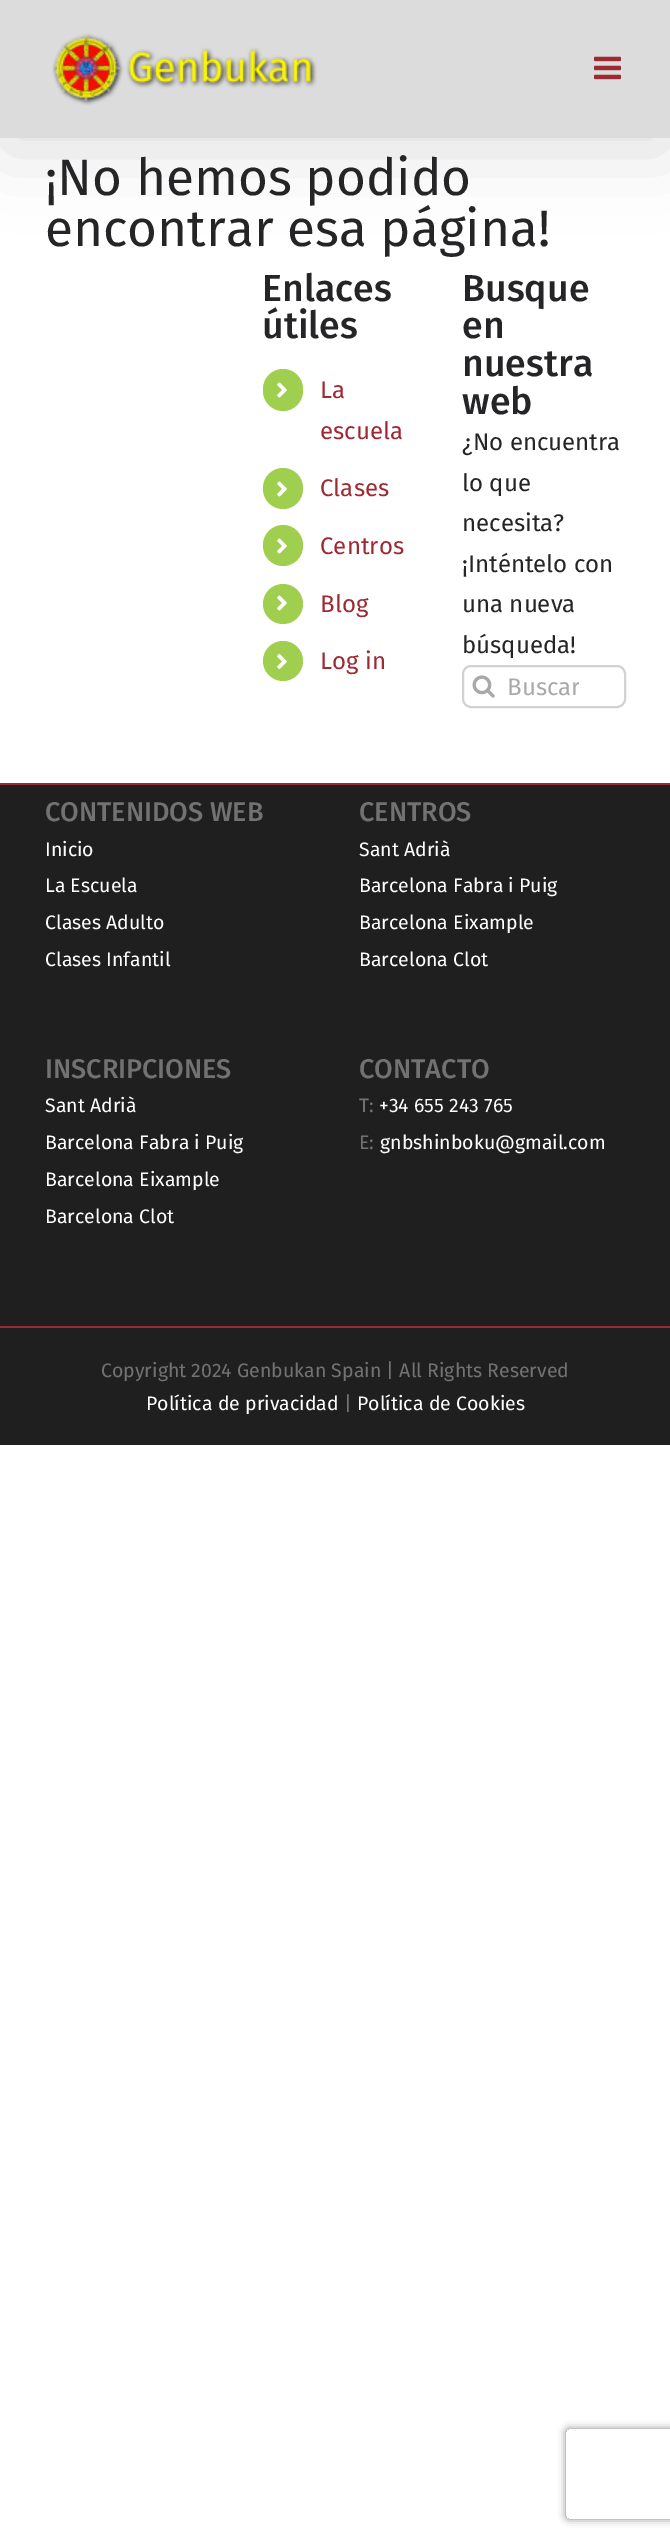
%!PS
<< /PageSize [670 2539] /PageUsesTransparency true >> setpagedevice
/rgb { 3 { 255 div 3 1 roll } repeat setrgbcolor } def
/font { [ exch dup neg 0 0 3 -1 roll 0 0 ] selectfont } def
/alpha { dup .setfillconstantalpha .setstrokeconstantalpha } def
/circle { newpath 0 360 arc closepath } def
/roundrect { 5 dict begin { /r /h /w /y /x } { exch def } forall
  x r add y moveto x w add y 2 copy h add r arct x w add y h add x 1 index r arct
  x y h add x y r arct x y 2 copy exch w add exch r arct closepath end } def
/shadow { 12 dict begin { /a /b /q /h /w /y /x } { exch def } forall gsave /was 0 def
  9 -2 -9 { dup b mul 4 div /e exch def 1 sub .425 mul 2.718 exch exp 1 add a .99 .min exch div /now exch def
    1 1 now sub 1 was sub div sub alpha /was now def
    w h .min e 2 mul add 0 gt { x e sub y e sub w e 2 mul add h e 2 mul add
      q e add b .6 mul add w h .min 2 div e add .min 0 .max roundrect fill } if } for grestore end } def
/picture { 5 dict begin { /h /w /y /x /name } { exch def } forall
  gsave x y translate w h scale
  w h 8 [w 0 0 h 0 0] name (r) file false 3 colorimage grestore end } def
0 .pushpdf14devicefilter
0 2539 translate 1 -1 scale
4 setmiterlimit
255 255 255 rgb
0 0 670 2539 rectfill
0 0 0 rgb
3 18 665 132 0 37.5 0.14 shadow
220 220 220 rgb
0 0 670 138 rectfill
(img/1.rgb) 52 33 265 73 picture
(img/2.rgb) 594 56 27 24 picture
160 206 78 rgb
263 369 40 42 20 roundrect fill
(img/3.rgb) 277 382 10 16 picture
263 468 40 41 20 roundrect fill
(img/3.rgb) 277 481 10 16 picture
263 525 40 41 20 roundrect fill
(img/3.rgb) 277 538 10 16 picture
283 604 20 circle fill
(img/3.rgb) 277 595 10 16 picture
283 661 20 circle fill
(img/4.rgb) 277 654 10 15 picture
210 210 210 rgb
2 setlinewidth
463 666 162 41 8 roundrect stroke
(img/5.rgb) 472 675 23 23 picture
[
  [0 785 670 541 31 31 31]
  [0 783 670 2 157 41 51]
  [0 1328 670 117 31 31 31]
  [0 1326 670 2 157 41 51]
] { aload pop rgb rectfill } forall
gsave
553 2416 moveto 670 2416 lineto 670 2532 lineto 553 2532 lineto closepath 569 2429 moveto 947 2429 lineto 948.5 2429 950 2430.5 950 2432 curveto 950 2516 lineto 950 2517.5 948.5 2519 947 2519 curveto 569 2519 lineto 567.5 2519 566 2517.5 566 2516 curveto 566 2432 lineto 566 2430.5 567.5 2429 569 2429 curveto closepath eoclip newpath
128 128 128 rgb
566 2429 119 90 3 4 1 shadow
grestore
/FiraSans-Regular 51.25 font
37 37 39 rgb
45 195 moveto (¡No hemos podido) show
45 246 moveto (encontrar esa página!) show
/FiraSans-Medium 37.5 font
262 301 moveto (Enlaces) show
262 338 moveto (útiles) show
/FiraSans-Regular 24 font
157 41 51 rgb
[
  [(La) 320 398]
  [(escuela) 320 439]
  [(Clases) 320 496]
  [(Centros) 320 554]
  [(Blog) 320 612]
  [(Log in) 320 669]
] { aload pop moveto show } forall
/FiraSans-Medium 37.5 font
37 37 39 rgb
[
  [(Busque) 462 301]
  [(en) 462 338]
  [(nuestra) 462 376]
  [(web) 462 414]
] { aload pop moveto show } forall
/FiraSans-Regular 24 font
[
  [(¿No encuentra) 462 450]
  [(lo que) 462 491]
  [(necesita?) 462 531]
  [(¡Inténtelo con) 462 572]
  [(una nueva) 462 612]
  [(búsqueda!) 462 653]
] { aload pop moveto show } forall
gsave
507 672 72 29 rectclip
170 169 169 rgb
507 695 moveto (Buscar) show
grestore
/FiraSans-Medium 27 font
114 114 114 rgb
45 821 moveto (CONTENIDOS WEB) show
/FiraSans-Regular 19.5 font
255 255 255 rgb
[
  [(Inicio) 45 856]
  [(La Escuela) 45 892]
  [(Clases Adulto) 45 929]
  [(Clases Infantil) 45 966]
] { aload pop moveto show } forall
/FiraSans-Medium 27 font
114 114 114 rgb
359 821 moveto (CENTROS) show
/FiraSans-Regular 19.5 font
255 255 255 rgb
[
  [(Sant Adrià) 359 856]
  [(Barcelona Fabra i Puig) 359 892]
  [(Barcelona Eixample) 359 929]
  [(Barcelona Clot) 359 966]
] { aload pop moveto show } forall
/FiraSans-Medium 27 font
114 114 114 rgb
45 1078 moveto (INSCRIPCIONES) show
/FiraSans-Regular 19.5 font
255 255 255 rgb
[
  [(Sant Adrià) 45 1112]
  [(Barcelona Fabra i Puig) 45 1149]
  [(Barcelona Eixample) 45 1186]
  [(Barcelona Clot) 45 1223]
] { aload pop moveto show } forall
/FiraSans-Medium 27 font
114 114 114 rgb
359 1078 moveto (CONTACTO) show
/FiraSans-Regular 19.5 font
359 1112 moveto (T:) show
255 255 255 rgb
379 1112 moveto (+34 655 243 765) show
114 114 114 rgb
359 1149 moveto (E:) show
255 255 255 rgb
380 1149 moveto (gnbshinboku@gmail.com) show
114 114 114 rgb
101 1377 moveto (Copyright 2024 Genbukan Spain | All Rights Reserved) show
255 255 255 rgb
146 1410 moveto (Política de privacidad) show
114 114 114 rgb
344 1410 moveto (|) show
255 255 255 rgb
357 1410 moveto (Política de Cookies) show
.poppdf14devicefilter showpage
